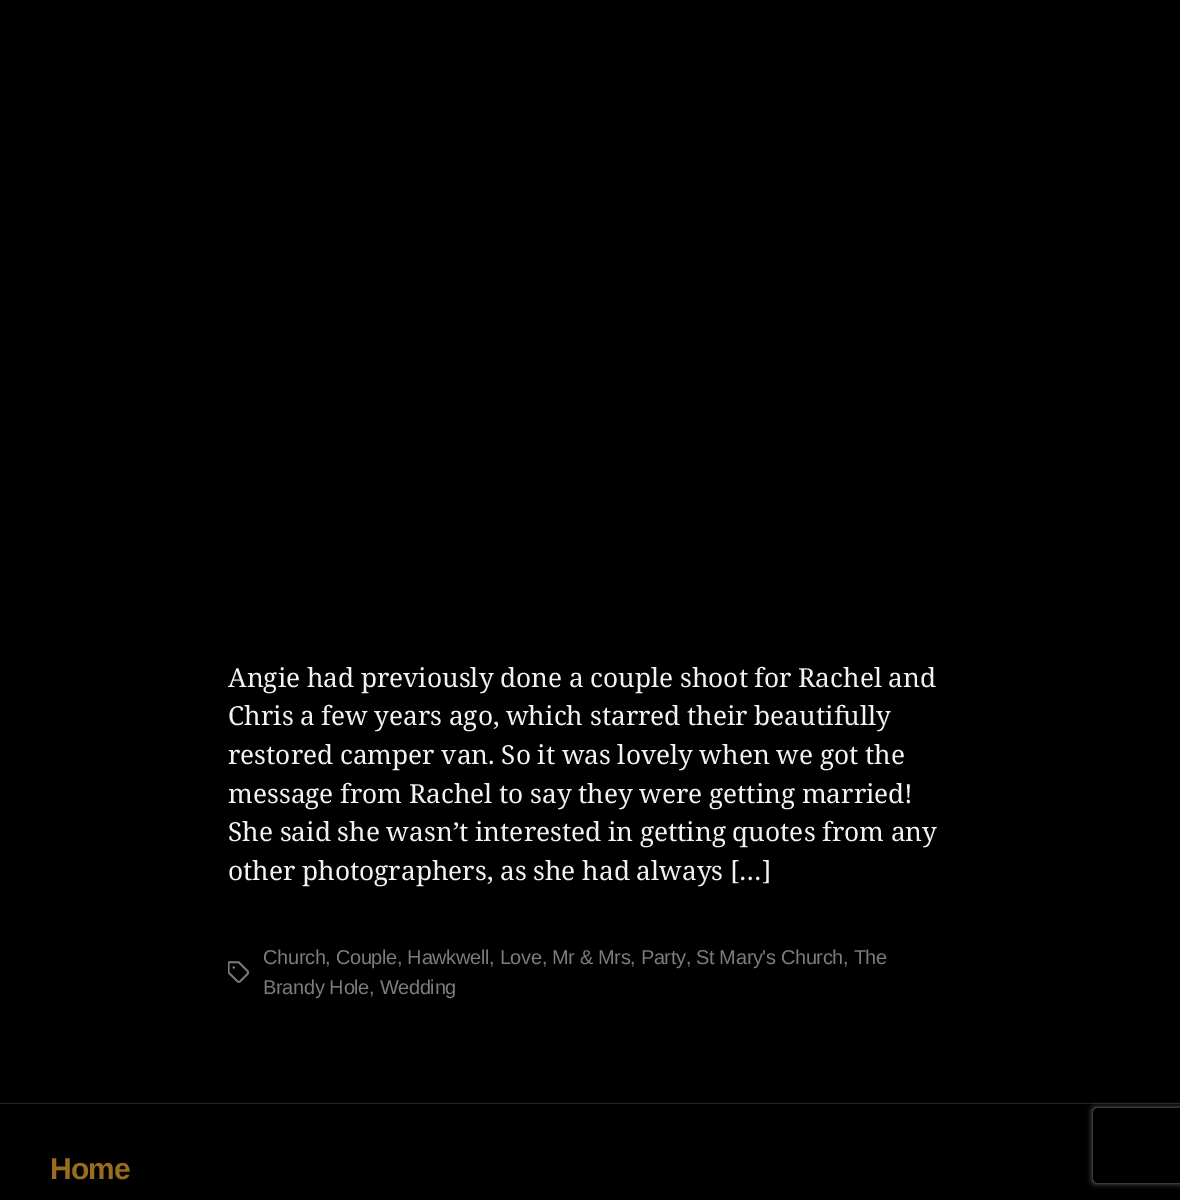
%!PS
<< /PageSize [1180 1200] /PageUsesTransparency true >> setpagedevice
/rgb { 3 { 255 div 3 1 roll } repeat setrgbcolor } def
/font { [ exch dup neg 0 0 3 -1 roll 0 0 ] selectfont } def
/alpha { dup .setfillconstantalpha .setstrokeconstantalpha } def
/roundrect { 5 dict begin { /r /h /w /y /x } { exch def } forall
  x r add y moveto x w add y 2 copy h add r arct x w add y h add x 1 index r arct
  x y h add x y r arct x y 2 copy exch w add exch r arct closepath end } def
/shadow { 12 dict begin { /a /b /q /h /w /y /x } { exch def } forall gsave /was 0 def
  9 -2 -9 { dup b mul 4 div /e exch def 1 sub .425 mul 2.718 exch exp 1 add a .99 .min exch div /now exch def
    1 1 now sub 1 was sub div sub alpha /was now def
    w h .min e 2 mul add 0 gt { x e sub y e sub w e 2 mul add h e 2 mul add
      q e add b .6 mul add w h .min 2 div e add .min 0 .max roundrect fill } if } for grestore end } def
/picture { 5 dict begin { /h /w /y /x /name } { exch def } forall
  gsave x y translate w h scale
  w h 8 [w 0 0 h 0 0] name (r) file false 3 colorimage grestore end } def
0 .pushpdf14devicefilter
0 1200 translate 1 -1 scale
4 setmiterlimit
0 0 0 rgb
0 0 1180 1200 rectfill
(img/1.rgb) 228 961 22 22 picture
38 38 38 rgb
0 1103 1180 1 rectfill
gsave
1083 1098 moveto 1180 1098 lineto 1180 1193 lineto 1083 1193 lineto closepath 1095.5 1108 moveto 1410.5 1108 lineto 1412 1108 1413 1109 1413 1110.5 curveto 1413 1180.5 lineto 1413 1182 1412 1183 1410.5 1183 curveto 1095.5 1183 lineto 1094 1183 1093 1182 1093 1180.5 curveto 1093 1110.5 lineto 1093 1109 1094 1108 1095.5 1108 curveto closepath eoclip newpath
128 128 128 rgb
1093 1108 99 75 2.5 3 1 shadow
grestore
/NotoSerif-Regular 26.25 font
242 242 242 rgb
228 687 moveto -0.25 0 32 (Angie had previously done a couple shoot for Rachel and) widthshow
228 725 moveto -0.25 0 32 (Chris a few years ago, which starred their beautifully) widthshow
228 764 moveto -0.25 0 32 (restored camper van. So it was lovely when we got the) widthshow
228 803 moveto -0.25 0 32 (message from Rachel to say they were getting married!) widthshow
228 841 moveto -0.25 0 32 (She said she wasn’t interested in getting quotes from any) widthshow
228 880 moveto -0.25 0 32 (other photographers, as she had always […]) widthshow
/LiberationSans-Regular 20 font
124 124 124 rgb
263 964 moveto -0.35 0 (Church, Couple, Hawkwell, Love, Mr & Mrs, Party, St Mary's Church, The) ashow
263 994 moveto -0.35 0 (Brandy Hole, Wedding) ashow
/LiberationSans-Bold 30 font
153 108 30 rgb
50 1179 moveto -1 0 (Home) ashow
.poppdf14devicefilter showpage
